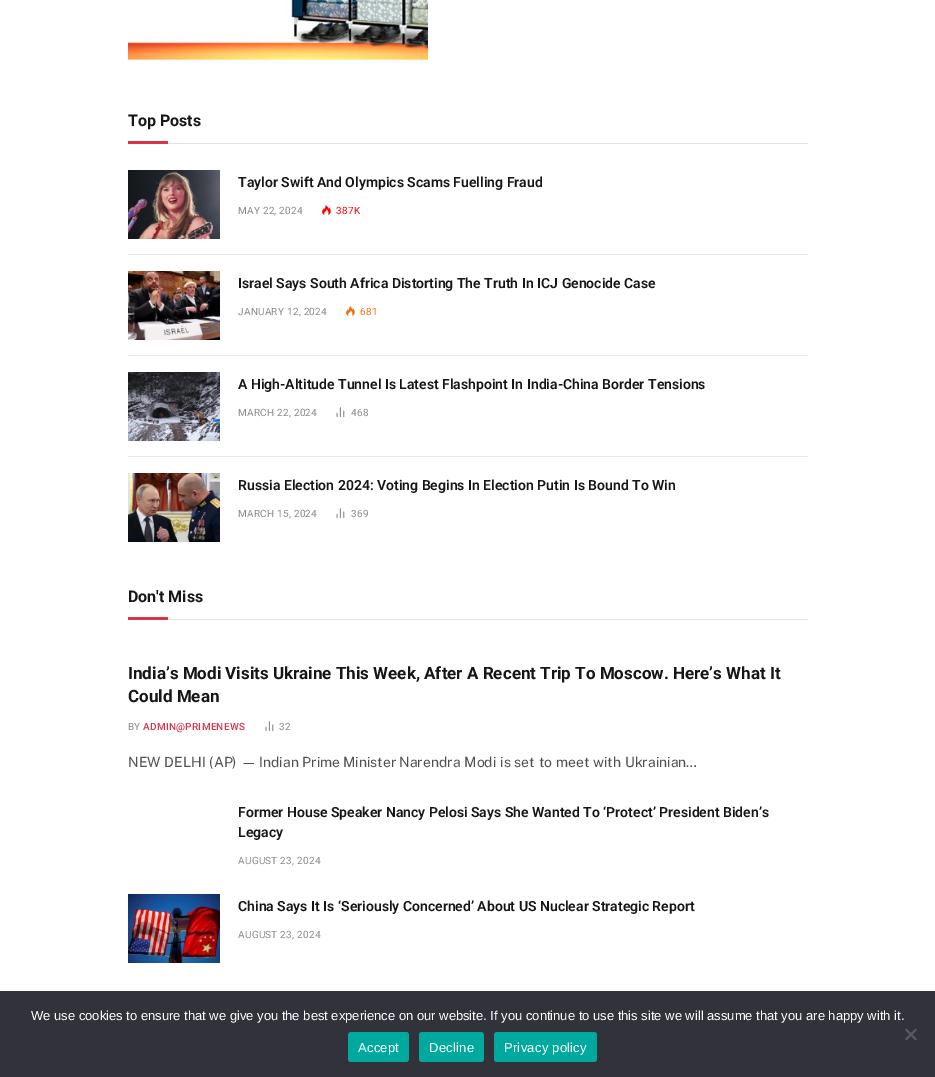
%!PS
<< /PageSize [935 1077] >> setpagedevice
/rgb { 3 { 255 div 3 1 roll } repeat setrgbcolor } def
/font { [ exch dup neg 0 0 3 -1 roll 0 0 ] selectfont } def
/roundrect { 5 dict begin { /r /h /w /y /x } { exch def } forall
  x r add y moveto x w add y 2 copy h add r arct x w add y h add x 1 index r arct
  x y h add x y r arct x y 2 copy exch w add exch r arct closepath end } def
/picture { 5 dict begin { /h /w /y /x /name } { exch def } forall
  gsave x y translate w h scale
  w h 8 [w 0 0 h 0 0] name (r) file false 3 colorimage grestore end } def
0 1077 translate 1 -1 scale
4 setmiterlimit
255 255 255 rgb
0 0 935 1077 rectfill
(img/1.rgb) 128 0 300 60 picture
226 226 226 rgb
168 143 640 1 rectfill
218 51 74 rgb
128 141 40 3 rectfill
(img/2.rgb) 128 170 92 69 picture
(img/3.rgb) 322 205 9 10 picture
232 232 232 rgb
128 254 680 1 rectfill
(img/4.rgb) 128 271 92 69 picture
(img/5.rgb) 346 306 9 10 picture
128 355 680 1 rectfill
(img/6.rgb) 128 372 92 69 picture
(img/7.rgb) 336 407 9 11 picture
128 456 680 1 rectfill
(img/8.rgb) 128 473 92 69 picture
(img/7.rgb) 336 508 9 11 picture
226 226 226 rgb
168 619 640 1 rectfill
218 51 74 rgb
128 617 40 3 rectfill
(img/7.rgb) 265 721 9 11 picture
(img/9.rgb) 128 894 92 69 picture
50 50 58 rgb
0 991 935 86 rectfill
89 89 93 rgb
915.5 1028.5 moveto 917 1030 lineto 906.5 1040.5 lineto 905 1039 lineto closepath fill
905 1030 moveto 906.5 1028.5 lineto 917 1039 lineto 915.5 1040.5 lineto closepath fill
0 169 157 rgb
348 1032 61 30 3 roundrect fill
419 1032 65 30 3 roundrect fill
494 1032 103 30 3 roundrect fill
/Roboto-Bold 16 font
22 22 22 rgb
128 126 moveto (Top Posts) show
/Roboto-SemiBold 14 font
238 187 moveto (Taylor Swift And Olympics Scams Fuelling Fraud) show
/Roboto-Regular 10 font
138 138 138 rgb
238 214 moveto 0.25 0 (MAY 22, 2024) ashow
255 0 0 rgb
336 214 moveto 0.25 0 (387K) ashow
/Roboto-SemiBold 14 font
22 22 22 rgb
238 288 moveto (Israel Says South Africa Distorting The Truth In ICJ Genocide Case) show
/Roboto-Regular 10 font
138 138 138 rgb
238 315 moveto 0.25 0 (JANUARY 12, 2024) ashow
237 109 8 rgb
360 315 moveto 0.25 0 (681) ashow
/Roboto-SemiBold 14 font
22 22 22 rgb
238 389 moveto (A High-Altitude Tunnel Is Latest Flashpoint In India-China Border Tensions) show
/Roboto-Regular 10 font
138 138 138 rgb
238 416 moveto 0.25 0 (MARCH 22, 2024) ashow
351 416 moveto 0.25 0 (468) ashow
/Roboto-SemiBold 14 font
22 22 22 rgb
238 490 moveto (Russia Election 2024: Voting Begins In Election Putin Is Bound To Win) show
/Roboto-Regular 10 font
138 138 138 rgb
238 517 moveto 0.25 0 (MARCH 15, 2024) ashow
351 517 moveto 0.25 0 (369) ashow
/Roboto-Bold 16 font
22 22 22 rgb
128 602 moveto (Don't Miss) show
/Roboto-Bold 17 font
128 679 moveto (India’s Modi Visits Ukraine This Week, After A Recent Trip To Moscow. Here’s What It) show
128 702 moveto (Could Mean) show
/Roboto-Regular 10 font
138 138 138 rgb
128 730 moveto 0.25 0 (BY) ashow
/Roboto-Medium 10 font
218 51 74 rgb
143 730 moveto 0.25 0 (ADMIN@PRIMENEWS) ashow
/Roboto-Regular 10 font
138 138 138 rgb
279 730 moveto 0.25 0 (32) ashow
/PublicSans-Regular 14 font
80 80 80 rgb
128 767 moveto 0.4 0 32 (NEW DELHI \(AP\) —) widthshow
259 767 moveto 0.4 0 32 (Indian Prime) widthshow
343 767 moveto 0.4 0 32 (Minister) widthshow
399 767 moveto 0.4 0 32 (Narendra Modi is set to meet with Ukrainian…) widthshow
/Roboto-SemiBold 14 font
22 22 22 rgb
238 817 moveto (Former House Speaker Nancy Pelosi Says She Wanted To ‘Protect’ President Biden’s) show
238 837 moveto (Legacy) show
/Roboto-Regular 10 font
138 138 138 rgb
238 864 moveto 0.25 0 (AUGUST 23, 2024) ashow
/Roboto-SemiBold 14 font
22 22 22 rgb
238 911 moveto (China Says It Is ‘Seriously Concerned’ About US Nuclear Strategic Report) show
/Roboto-Regular 10 font
138 138 138 rgb
238 938 moveto 0.25 0 (AUGUST 23, 2024) ashow
/LiberationSans-Regular 13 font
255 255 255 rgb
31 1020 moveto (We use cookies to ensure that we give you the best experience on our website. If you continue to use this site we will assume that you are happy with it.) show
358 1052 moveto 0.25 0 (Accept) ashow
429 1052 moveto 0.25 0 (Decline) ashow
504 1052 moveto 0.25 0 (Privacy policy) ashow
showpage
